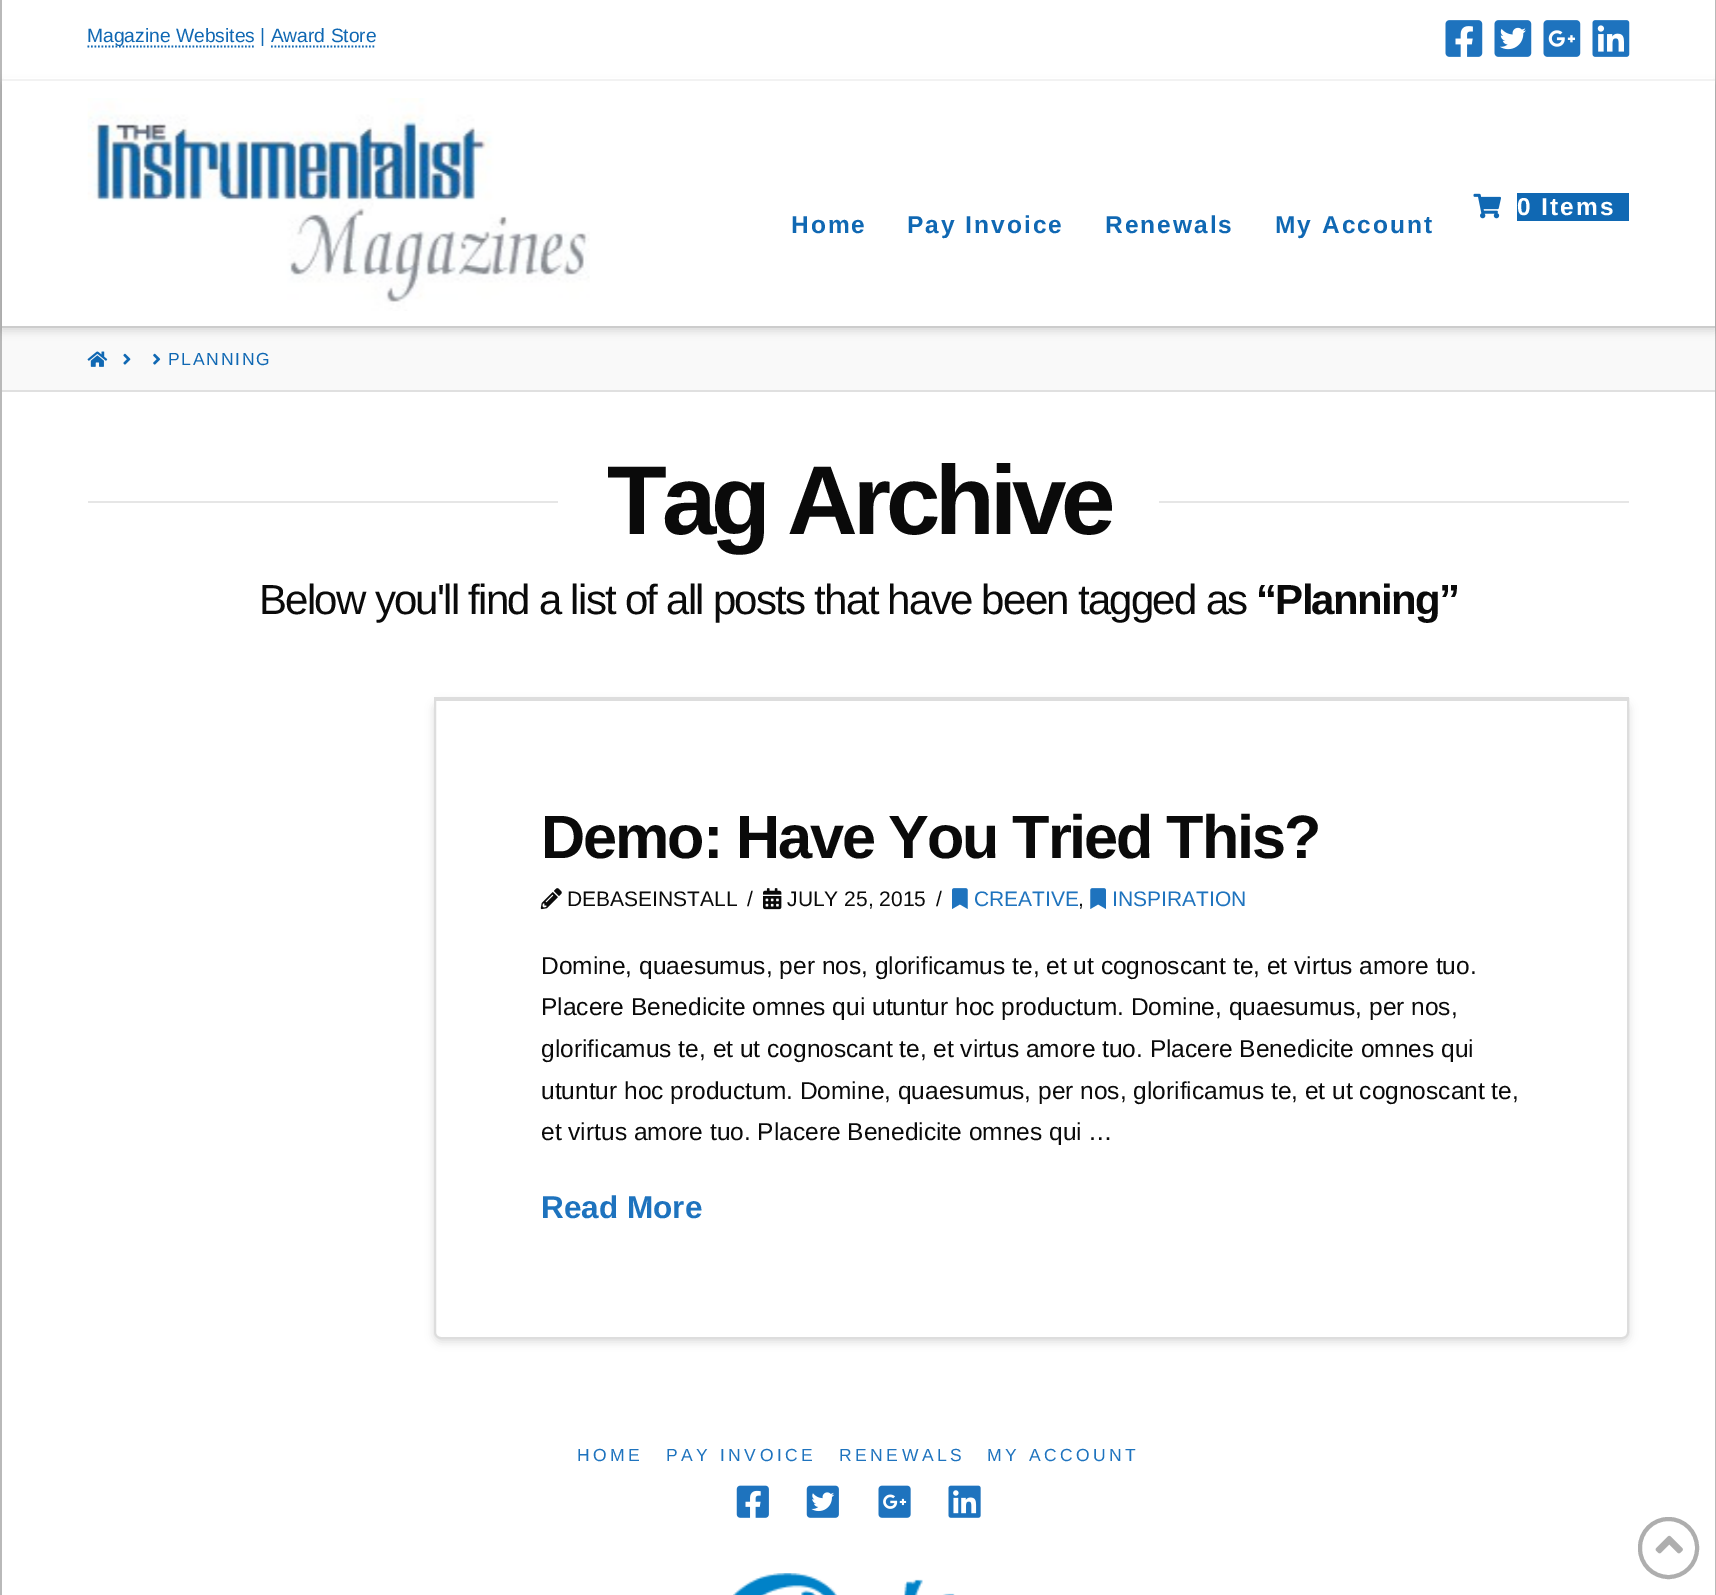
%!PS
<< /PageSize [1716 1595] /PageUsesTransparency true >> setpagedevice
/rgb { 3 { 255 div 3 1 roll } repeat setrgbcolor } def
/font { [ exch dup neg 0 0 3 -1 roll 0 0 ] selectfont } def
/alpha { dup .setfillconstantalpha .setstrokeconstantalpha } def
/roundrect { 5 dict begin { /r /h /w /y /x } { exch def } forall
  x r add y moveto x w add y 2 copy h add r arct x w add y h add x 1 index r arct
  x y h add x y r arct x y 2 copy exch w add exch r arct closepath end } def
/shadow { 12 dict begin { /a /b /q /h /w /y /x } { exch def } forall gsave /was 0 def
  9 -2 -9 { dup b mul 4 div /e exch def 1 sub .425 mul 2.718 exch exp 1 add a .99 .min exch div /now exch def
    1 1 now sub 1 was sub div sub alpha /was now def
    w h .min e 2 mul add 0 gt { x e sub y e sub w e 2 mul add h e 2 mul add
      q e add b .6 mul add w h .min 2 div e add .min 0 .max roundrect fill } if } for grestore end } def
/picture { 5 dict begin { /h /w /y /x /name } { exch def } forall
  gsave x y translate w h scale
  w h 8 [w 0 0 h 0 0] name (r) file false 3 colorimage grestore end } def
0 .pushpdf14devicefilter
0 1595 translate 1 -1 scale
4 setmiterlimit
255 255 255 rgb
0 0 1716 1595 rectfill
[
  [1715 0 1 1595 185 185 185]
  [0 0 2 1595 185 185 185]
  [2 328 1713 62 249 249 249]
] { aload pop rgb rectfill } forall
gsave
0 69 moveto 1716 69 lineto 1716 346 lineto 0 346 lineto closepath 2 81 moveto 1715 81 lineto 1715 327 lineto 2 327 lineto closepath eoclip newpath
0 0 0 rgb
2 84 1713 247 0 4.5 0.13 shadow
grestore
255 255 255 rgb
4 78 1709 1 rectfill
242 242 242 rgb
2 79 1713 2 rectfill
16 104 179 rgb
1.8 setlinewidth
[1.75 1.75] 0 setdash
87.5 46.5 moveto 255.5 46.5 lineto stroke
271 46.5 moveto 376 46.5 lineto stroke
(img/1.rgb) 1445 20 38 37 picture
(img/2.rgb) 1494 20 38 37 picture
(img/3.rgb) 1543 20 38 37 picture
(img/4.rgb) 1592 20 38 37 picture
204 204 204 rgb
2 326 1713 2 rectfill
(img/5.rgb) 87 98 503 213 picture
(img/6.rgb) 1473 193 28 26 picture
16 104 179 rgb
1517 193 112 28 rectfill
224 224 224 rgb
2 390 1713 2 rectfill
(img/7.rgb) 87 351 21 16 picture
(img/8.rgb) 123 353 8 12 picture
(img/9.rgb) 153 353 8 12 picture
230 230 230 rgb
88 501 470 2 rectfill
1159 501 470 2 rectfill
0 0 0 rgb
434 702 1195 640 7 4.5 0.13 shadow
255 255 255 rgb
435 699 moveto 1628 699 lineto 1628 1332 lineto 1628 1335.5 1625.5 1338 1622 1338 curveto 441 1338 lineto 437.5 1338 435 1335.5 435 1332 curveto closepath gsave fill grestore
221 221 221 rgb
2 setlinewidth
[] 0 setdash
stroke
434 697 1195 4 rectfill
(img/10.rgb) 540 888 22 22 picture
(img/11.rgb) 763 888 19 22 picture
(img/12.rgb) 952 888 16 21 picture
(img/13.rgb) 1090 888 16 21 picture
(img/14.rgb) 736 1485 33 33 picture
(img/15.rgb) 806 1485 33 33 picture
(img/16.rgb) 878 1485 33 33 picture
(img/17.rgb) 948 1485 33 33 picture
(img/18.rgb) 733 1573 222 22 picture
174 174 174 rgb
4 setlinewidth
1640 1519 57 58 28.5 roundrect stroke
(img/19.rgb) 1655 1535 28 19 picture
/LiberationSans-Regular 19.25 font
16 104 179 rgb
87 42 moveto (Magazine Websites | Award Store) show
/LiberationSans-Bold 24.5 font
255 255 255 rgb
1517 215 moveto 2 0 (0 Items) ashow
16 104 179 rgb
791 233 moveto 2 0 (Home) ashow
907 233 moveto 2 0 (Pay Invoice) ashow
1105 233 moveto 2 0 (Renewals) ashow
1275 233 moveto 2 0 (My Account) ashow
/LiberationSans-Regular 17.5 font
168 365 moveto 1.75 0 (PLANNING) ashow
/LiberationSans-Bold 98 font
10 10 10 rgb
607 534 moveto -5.25 0 (Tag Archive) ashow
/LiberationSans-Regular 42 font
259 614 moveto -1.75 0 (Below you'll find a list of all posts that have been tagged as) ashow
/LiberationSans-Bold 42 font
1256 614 moveto -1.75 0 (“Planning”) ashow
/LiberationSans-Bold 61.25 font
541 858 moveto -2.15 0 (Demo: Have You Tried This?) ashow
/LiberationSans-Regular 21 font
[
  [(DEBASEINSTALL) 567 906]
  [(/) 747 906]
  [(JULY 25, 2015) 787 906]
  [(/) 936 906]
] { aload pop moveto show } forall
30 115 190 rgb
974 906 moveto (CREATIVE) show
10 10 10 rgb
1078 906 moveto (,) show
30 115 190 rgb
1112 906 moveto (INSPIRATION) show
/LiberationSans-Regular 24.5 font
10 10 10 rgb
[
  [(Domine, quaesumus, per nos, glorificamus te, et ut cognoscant te, et virtus amore tuo.) 541 974]
  [(Placere Benedicite omnes qui utuntur hoc productum. Domine, quaesumus, per nos,) 541 1015]
  [(glorificamus te, et ut cognoscant te, et virtus amore tuo. Placere Benedicite omnes qui) 541 1057]
  [(utuntur hoc productum. Domine, quaesumus, per nos, glorificamus te, et ut cognoscant te,) 541 1099]
  [(et virtus amore tuo. Placere Benedicite omnes qui …) 541 1140]
] { aload pop moveto show } forall
/LiberationSans-Bold 31.5 font
30 115 190 rgb
541 1218 moveto (Read More) show
/LiberationSans-Regular 17.5 font
577 1461 moveto 3.5 0 (HOME) ashow
666 1461 moveto 3.5 0 (PAY INVOICE) ashow
839 1461 moveto 3.5 0 (RENEWALS) ashow
987 1461 moveto 3.5 0 (MY ACCOUNT) ashow
.poppdf14devicefilter showpage
